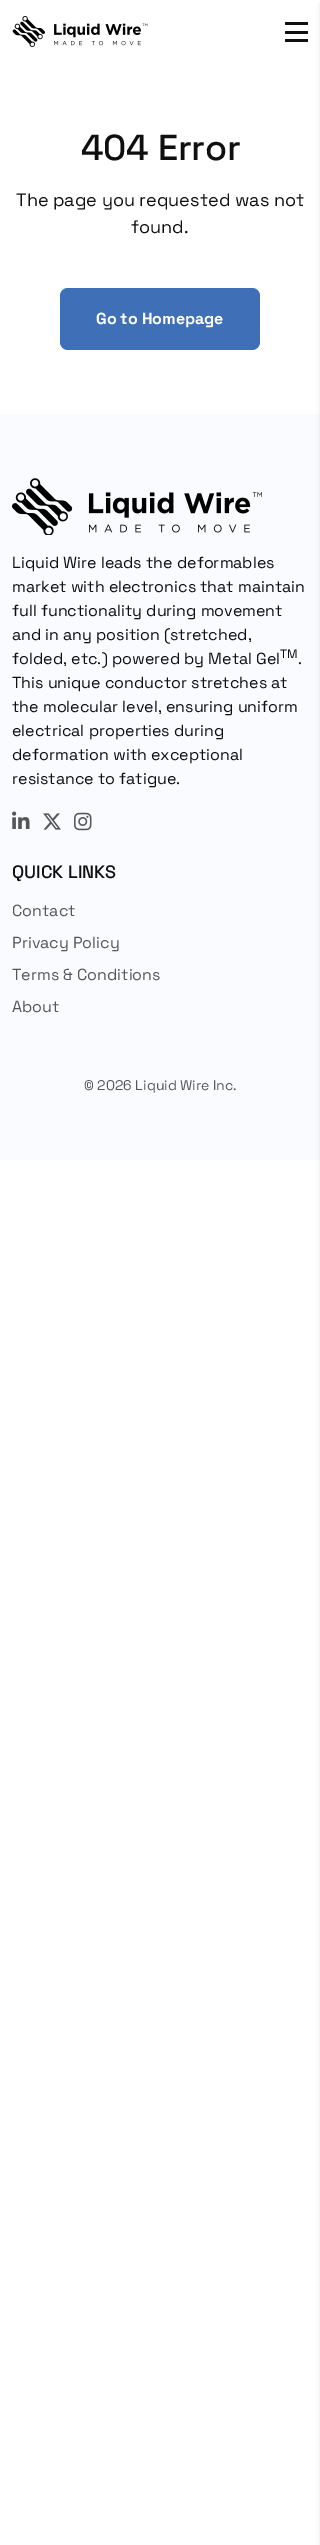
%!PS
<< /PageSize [320 2545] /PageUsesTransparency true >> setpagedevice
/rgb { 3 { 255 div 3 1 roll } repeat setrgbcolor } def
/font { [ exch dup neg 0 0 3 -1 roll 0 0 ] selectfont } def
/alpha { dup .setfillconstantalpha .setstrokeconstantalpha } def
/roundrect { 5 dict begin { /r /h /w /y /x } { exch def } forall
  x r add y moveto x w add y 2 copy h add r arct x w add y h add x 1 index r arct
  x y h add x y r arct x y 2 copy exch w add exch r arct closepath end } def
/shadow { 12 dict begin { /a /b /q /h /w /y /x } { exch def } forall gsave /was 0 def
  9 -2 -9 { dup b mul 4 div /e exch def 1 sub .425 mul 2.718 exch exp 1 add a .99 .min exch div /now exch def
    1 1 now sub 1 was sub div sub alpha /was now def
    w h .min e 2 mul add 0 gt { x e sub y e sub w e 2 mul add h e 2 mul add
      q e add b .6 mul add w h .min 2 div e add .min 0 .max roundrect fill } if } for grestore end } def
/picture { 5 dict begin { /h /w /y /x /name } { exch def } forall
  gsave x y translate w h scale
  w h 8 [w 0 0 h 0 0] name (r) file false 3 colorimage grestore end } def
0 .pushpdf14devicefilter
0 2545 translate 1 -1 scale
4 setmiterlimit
255 255 255 rgb
0 0 320 2545 rectfill
(img/1.rgb) 12 16 136 31 picture
15 15 15 rgb
285 22 23 3 1 roundrect fill
285 31 23 3 1 roundrect fill
285 39 23 3 1 roundrect fill
249 251 254 rgb
0 414 320 746 rectfill
0 0 0 rgb
320 4 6 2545 0 2 0.1 shadow
63 111 183 rgb
60 288 200 62 8 roundrect fill
(img/2.rgb) 12 478 250 57 picture
(img/3.rgb) 12 811 18 18 picture
(img/4.rgb) 43 813 18 17 picture
(img/5.rgb) 74 812 18 19 picture
/SpaceGrotesk-Medium 36 font
15 15 15 rgb
81 160 moveto -0.25 0 (404 Error) ashow
/SpaceGrotesk-Regular 18 font
16 206 moveto (The page you requested was not) show
131 233 moveto (found.) show
/SpaceGrotesk-Bold 16 font
255 255 255 rgb
96 324 moveto (Go to Homepage) show
/SpaceGrotesk-Regular 16 font
15 15 15 rgb
[
  [(Liquid Wire leads the deformables) 12 568]
  [(market with electronics that maintain) 12 592]
  [(full functionality during movement) 12 616]
  [(and in any position \(stretched,) 12 640]
  [(folded, etc.\) powered by Metal Gel) 12 664]
] { aload pop moveto show } forall
/SpaceGrotesk-Regular 12 font
280 658 moveto (TM) show
/SpaceGrotesk-Regular 16 font
[
  [(.) 298 664]
  [(This unique conductor stretches at) 12 688]
  [(the molecular level, ensuring uniform) 12 712]
  [(electrical properties during) 12 736]
  [(deformation with exceptional) 12 760]
  [(resistance to fatigue.) 12 784]
] { aload pop moveto show } forall
/SpaceGrotesk-Medium 18 font
12 878 moveto (QUICK LINKS) show
/SpaceGrotesk-Regular 16 font
85 86 87 rgb
[
  [(Contact) 12 916]
  [(Privacy Policy) 12 948]
  [(Terms & Conditions) 12 980]
  [(About) 12 1012]
] { aload pop moveto show } forall
/SpaceGrotesk-Regular 14 font
84 1090 moveto (© 2026 Liquid Wire Inc.) show
.poppdf14devicefilter showpage
